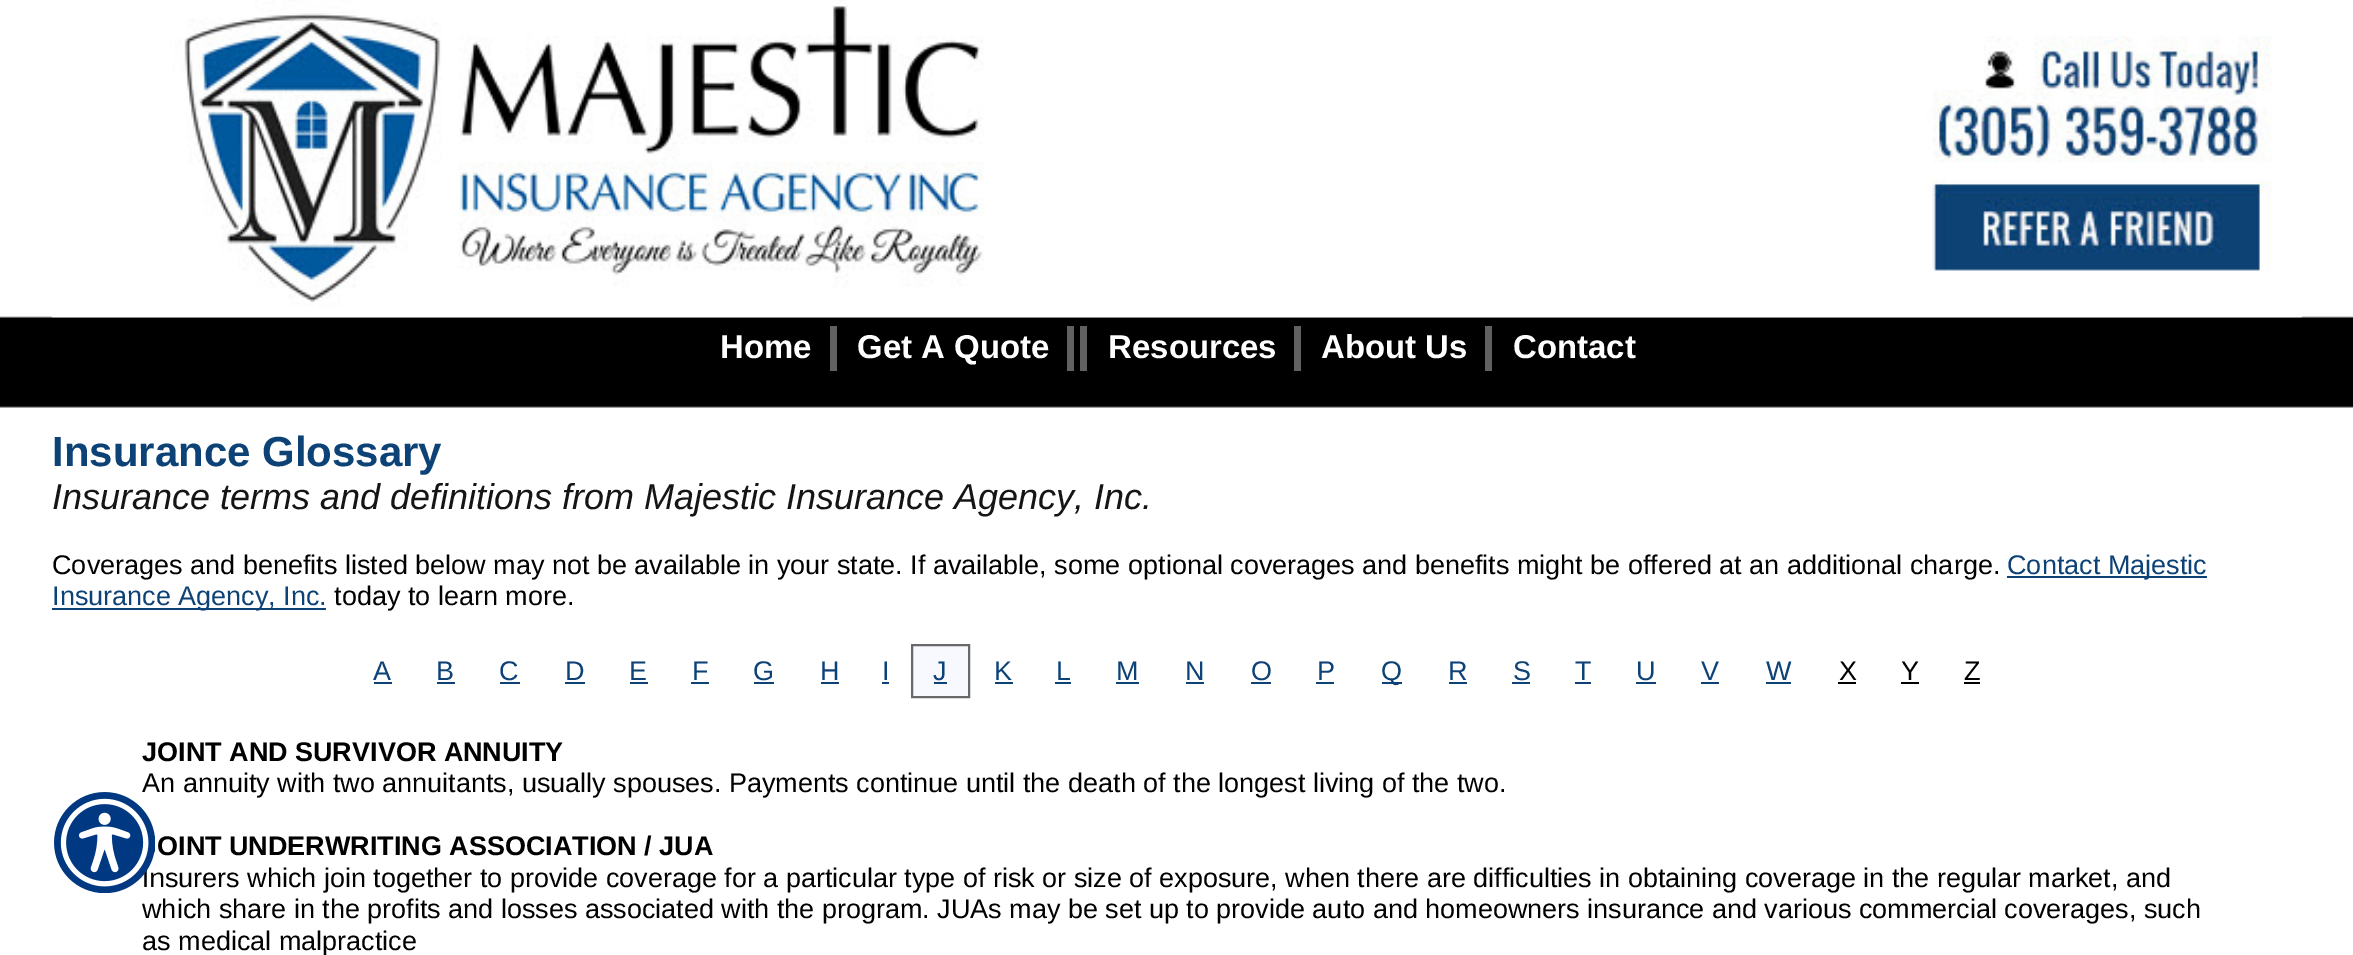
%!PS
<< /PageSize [2353 955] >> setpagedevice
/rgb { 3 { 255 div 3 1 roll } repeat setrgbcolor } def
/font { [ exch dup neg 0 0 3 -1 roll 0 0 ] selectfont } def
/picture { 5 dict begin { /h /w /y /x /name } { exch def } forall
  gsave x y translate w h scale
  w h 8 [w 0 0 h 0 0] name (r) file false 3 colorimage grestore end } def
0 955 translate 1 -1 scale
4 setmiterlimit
255 255 255 rgb
0 0 2353 955 rectfill
(img/1.rgb) 0 316 2353 92 picture
(img/2.rgb) 51 0 2251 318 picture
[
  [830 326 7 45 97 97 97]
  [1067 326 7 45 97 97 97]
  [1080 326 7 45 97 97 97]
  [1294 326 7 45 97 97 97]
  [1485 326 7 45 97 97 97]
  [2007 576 200 2 13 66 118]
  [52 608 274 2 13 66 118]
  [374 682 18 2 13 66 118]
  [437 682 18 2 13 66 118]
  [500 682 20 2 13 66 118]
  [565 682 20 2 13 66 118]
  [630 682 18 2 13 66 118]
  [691 682 18 2 13 66 118]
  [754 682 20 2 13 66 118]
  [821 682 18 2 13 66 118]
  [882 682 7 2 13 66 118]
] { aload pop rgb rectfill } forall
248 248 255 rgb
912 645 moveto 969 645 lineto 969 697 lineto 912 697 lineto closepath gsave fill grestore
105 105 105 rgb
2 setlinewidth
stroke
[
  [934 682 13 2 13 66 118]
  [995 682 18 2 13 66 118]
  [1055 682 16 2 13 66 118]
  [1116 682 23 2 13 66 118]
  [1186 682 18 2 13 66 118]
  [1251 682 20 2 13 66 118]
  [1316 682 18 2 13 66 118]
  [1382 682 20 2 13 66 118]
  [1449 682 18 2 13 66 118]
  [1512 682 18 2 13 66 118]
  [1575 682 16 2 13 66 118]
  [1636 682 20 2 13 66 118]
  [1701 682 18 2 13 66 118]
  [1766 682 25 2 13 66 118]
  [1838 682 18 2 0 0 0]
  [1901 682 18 2 0 0 0]
  [1964 682 16 2 0 0 0]
] { aload pop rgb rectfill } forall
/LiberationSans-Bold 33 font
255 255 255 rgb
[
  [(Home) 720 358]
  [(Get A Quote) 857 358]
  [(Resources) 1108 358]
  [(About Us) 1321 358]
  [(Contact) 1513 358]
] { aload pop moveto show } forall
/LiberationSans-Bold 42 font
13 66 118 rgb
52 466 moveto (Insurance Glossary) show
/LiberationSans-Italic 36 font
21 21 21 rgb
52 509 moveto (Insurance terms and definitions from Majestic Insurance Agency, Inc.) show
/LiberationSans-Regular 27 font
0 0 0 rgb
52 574 moveto (Coverages and benefits listed below may not be available in your state. If available, some optional coverages and benefits might be offered at an additional charge.) show
13 66 118 rgb
2007 574 moveto (Contact Majestic) show
52 605 moveto (Insurance Agency, Inc.) show
0 0 0 rgb
334 605 moveto (today to learn more.) show
13 66 118 rgb
[
  [(A) 373 680]
  [(B) 436 680]
  [(C) 499 680]
  [(D) 565 680]
  [(E) 629 680]
  [(F) 692 680]
  [(G) 753 680]
  [(H) 820 680]
  [(I) 882 680]
  [(J) 933 680]
  [(K) 994 680]
  [(L) 1056 680]
  [(M) 1116 680]
  [(N) 1185 680]
  [(O) 1251 680]
  [(P) 1317 680]
  [(Q) 1381 680]
  [(R) 1448 680]
  [(S) 1513 680]
  [(T) 1575 680]
  [(U) 1636 680]
  [(V) 1701 680]
  [(W) 1766 680]
] { aload pop moveto show } forall
0 0 0 rgb
[
  [(X) 1839 680]
  [(Y) 1901 680]
  [(Z) 1964 680]
] { aload pop moveto show } forall
/LiberationSans-Bold 27 font
142 761 moveto (JOINT AND SURVIVOR ANNUITY) show
/LiberationSans-Regular 27 font
142 792 moveto (An annuity with two annuitants, usually spouses. Payments continue until the death of the longest living of the two.) show
/LiberationSans-Bold 27 font
157 855 moveto (OINT UNDERWRITING ASSOCIATION / JUA) show
/LiberationSans-Regular 27 font
[
  [(Insurers which join together to provide coverage for a particular type of risk or size of exposure, when there are difficulties in obtaining coverage in the regular market, and) 142 887]
  [(which share in the profits and losses associated with the program. JUAs may be set up to provide auto and homeowners insurance and various commercial coverages, such) 142 918]
  [(as medical malpractice) 142 950]
] { aload pop moveto show } forall
(img/3.rgb) 54 792 101 101 picture
showpage
